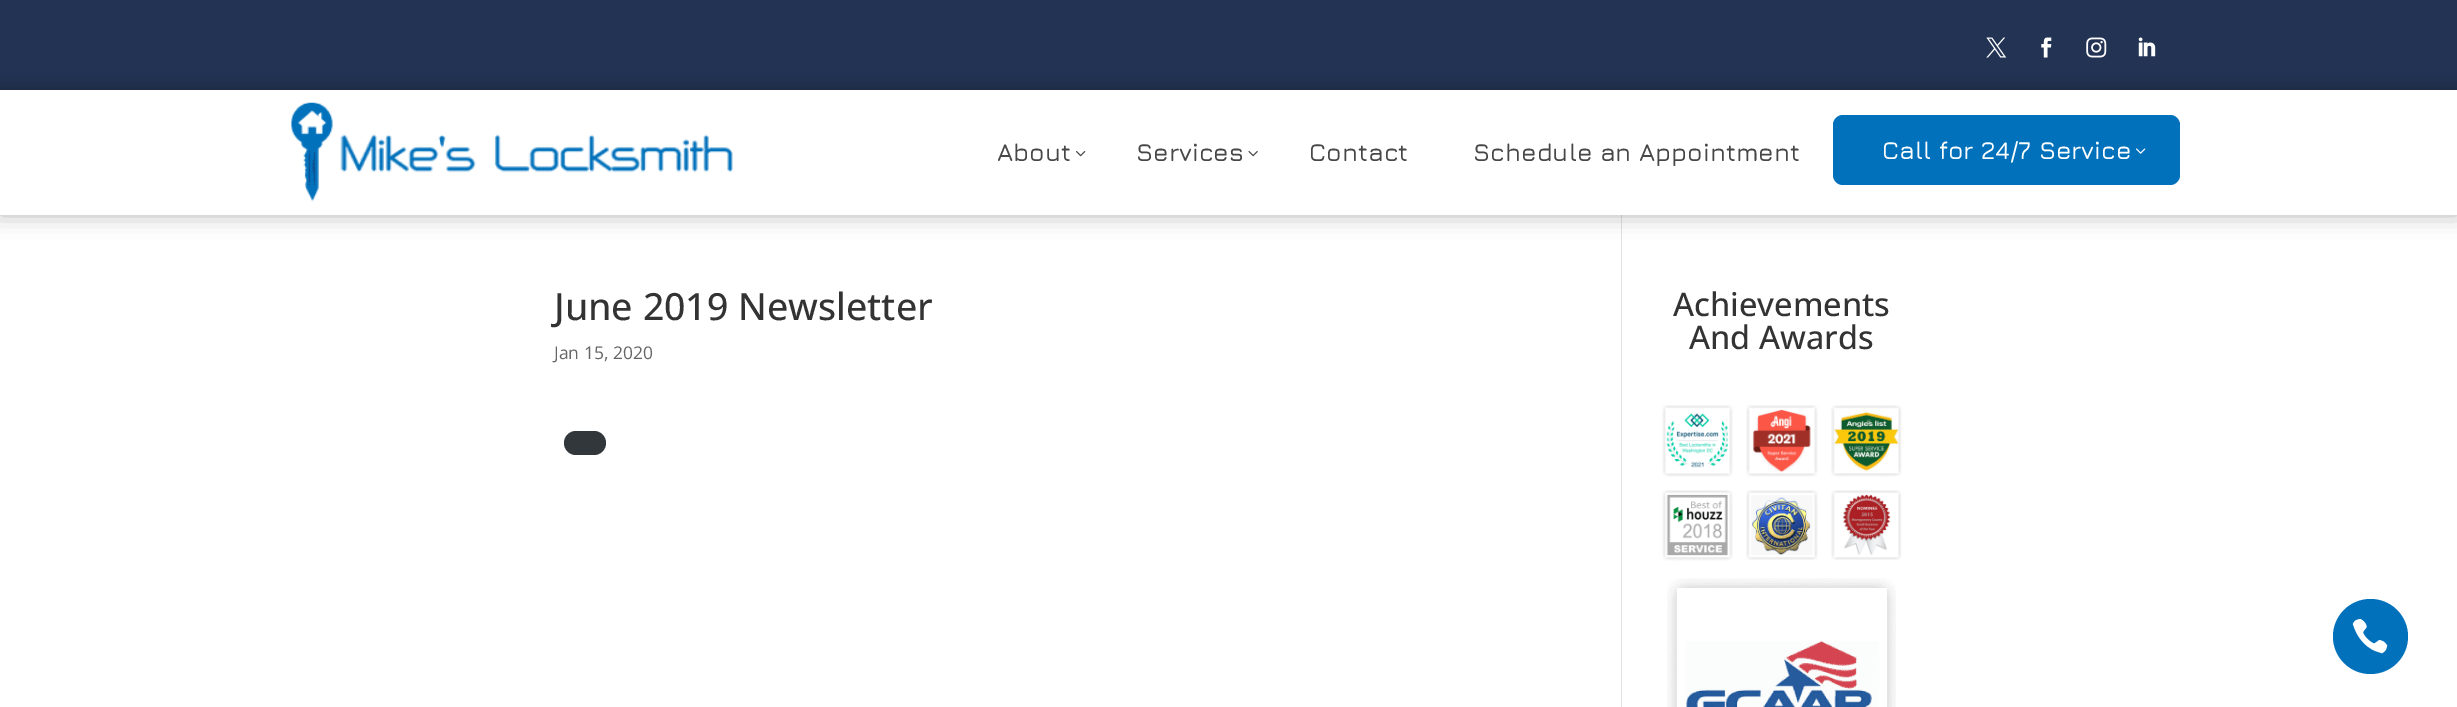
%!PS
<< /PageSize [2457 707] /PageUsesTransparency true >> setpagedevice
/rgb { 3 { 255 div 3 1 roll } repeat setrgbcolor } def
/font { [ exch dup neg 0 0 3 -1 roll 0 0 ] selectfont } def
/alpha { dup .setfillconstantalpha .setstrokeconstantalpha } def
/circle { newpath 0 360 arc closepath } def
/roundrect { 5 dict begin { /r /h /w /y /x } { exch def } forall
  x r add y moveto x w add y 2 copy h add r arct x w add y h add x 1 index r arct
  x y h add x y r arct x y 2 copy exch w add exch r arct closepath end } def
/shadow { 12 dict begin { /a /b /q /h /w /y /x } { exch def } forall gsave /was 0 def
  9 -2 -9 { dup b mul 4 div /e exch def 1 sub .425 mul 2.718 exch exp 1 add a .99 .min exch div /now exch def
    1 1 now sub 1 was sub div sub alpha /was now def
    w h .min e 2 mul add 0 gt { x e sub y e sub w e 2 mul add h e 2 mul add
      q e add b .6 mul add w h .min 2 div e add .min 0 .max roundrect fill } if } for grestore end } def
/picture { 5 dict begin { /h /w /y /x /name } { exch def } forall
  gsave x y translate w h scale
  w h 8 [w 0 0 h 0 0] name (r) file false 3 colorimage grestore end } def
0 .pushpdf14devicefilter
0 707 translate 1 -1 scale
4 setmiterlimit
255 255 255 rgb
0 0 2457 707 rectfill
34 51 84 rgb
0 0 2457 90 rectfill
(img/1.rgb) 1986 37 21 21 picture
(img/2.rgb) 2041 37 11 21 picture
(img/3.rgb) 2086 37 21 21 picture
(img/4.rgb) 2138 37 18 20 picture
226 226 226 rgb
1621 215 1 492 rectfill
gsave
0 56 moveto 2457 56 lineto 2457 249 lineto 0 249 lineto closepath 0 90 moveto 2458 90 lineto 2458 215 lineto 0 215 lineto closepath eoclip newpath
0 0 0 rgb
0 90 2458 125 0 11 0.3 shadow
grestore
(img/5.rgb) 291 102 442 100 picture
(img/6.rgb) 1076 151 10 6 picture
(img/7.rgb) 1248 151 10 6 picture
1 113 187 rgb
1833 115 347 70 10 roundrect fill
(img/8.rgb) 2136 148 10 6 picture
50 55 60 rgb
564 431 42 24 12 roundrect fill
(img/9.rgb) 1662 405 71 72 picture
(img/10.rgb) 1746 405 72 72 picture
(img/11.rgb) 1831 405 71 72 picture
(img/12.rgb) 1662 490 71 71 picture
(img/13.rgb) 1746 490 72 70 picture
(img/14.rgb) 1831 490 71 70 picture
(img/15.rgb) 1667 578 229 129 picture
1 113 187 rgb
2370.5 636.5 37.5 circle fill
(img/16.rgb) 2352 618 36 36 picture
/Jura-SemiBold 25 font
71 71 71 rgb
[
  [(About) 997 161]
  [(Services) 1136 161]
  [(Contact) 1309 161]
  [(Schedule an Appointment) 1473 161]
] { aload pop moveto show } forall
255 255 255 rgb
1882 159 moveto (Call for 24/7 Service) show
/OpenSans-Medium 37.5 font
51 51 51 rgb
554 320 moveto (June 2019 Newsletter) show
/OpenSans-Regular 17.5 font
102 102 102 rgb
554 359 moveto (Jan 15, 2020) show
/OpenSans-Medium 32.5 font
51 51 51 rgb
1673 316 moveto (Achievements) show
1689 349 moveto (And Awards) show
.poppdf14devicefilter showpage
